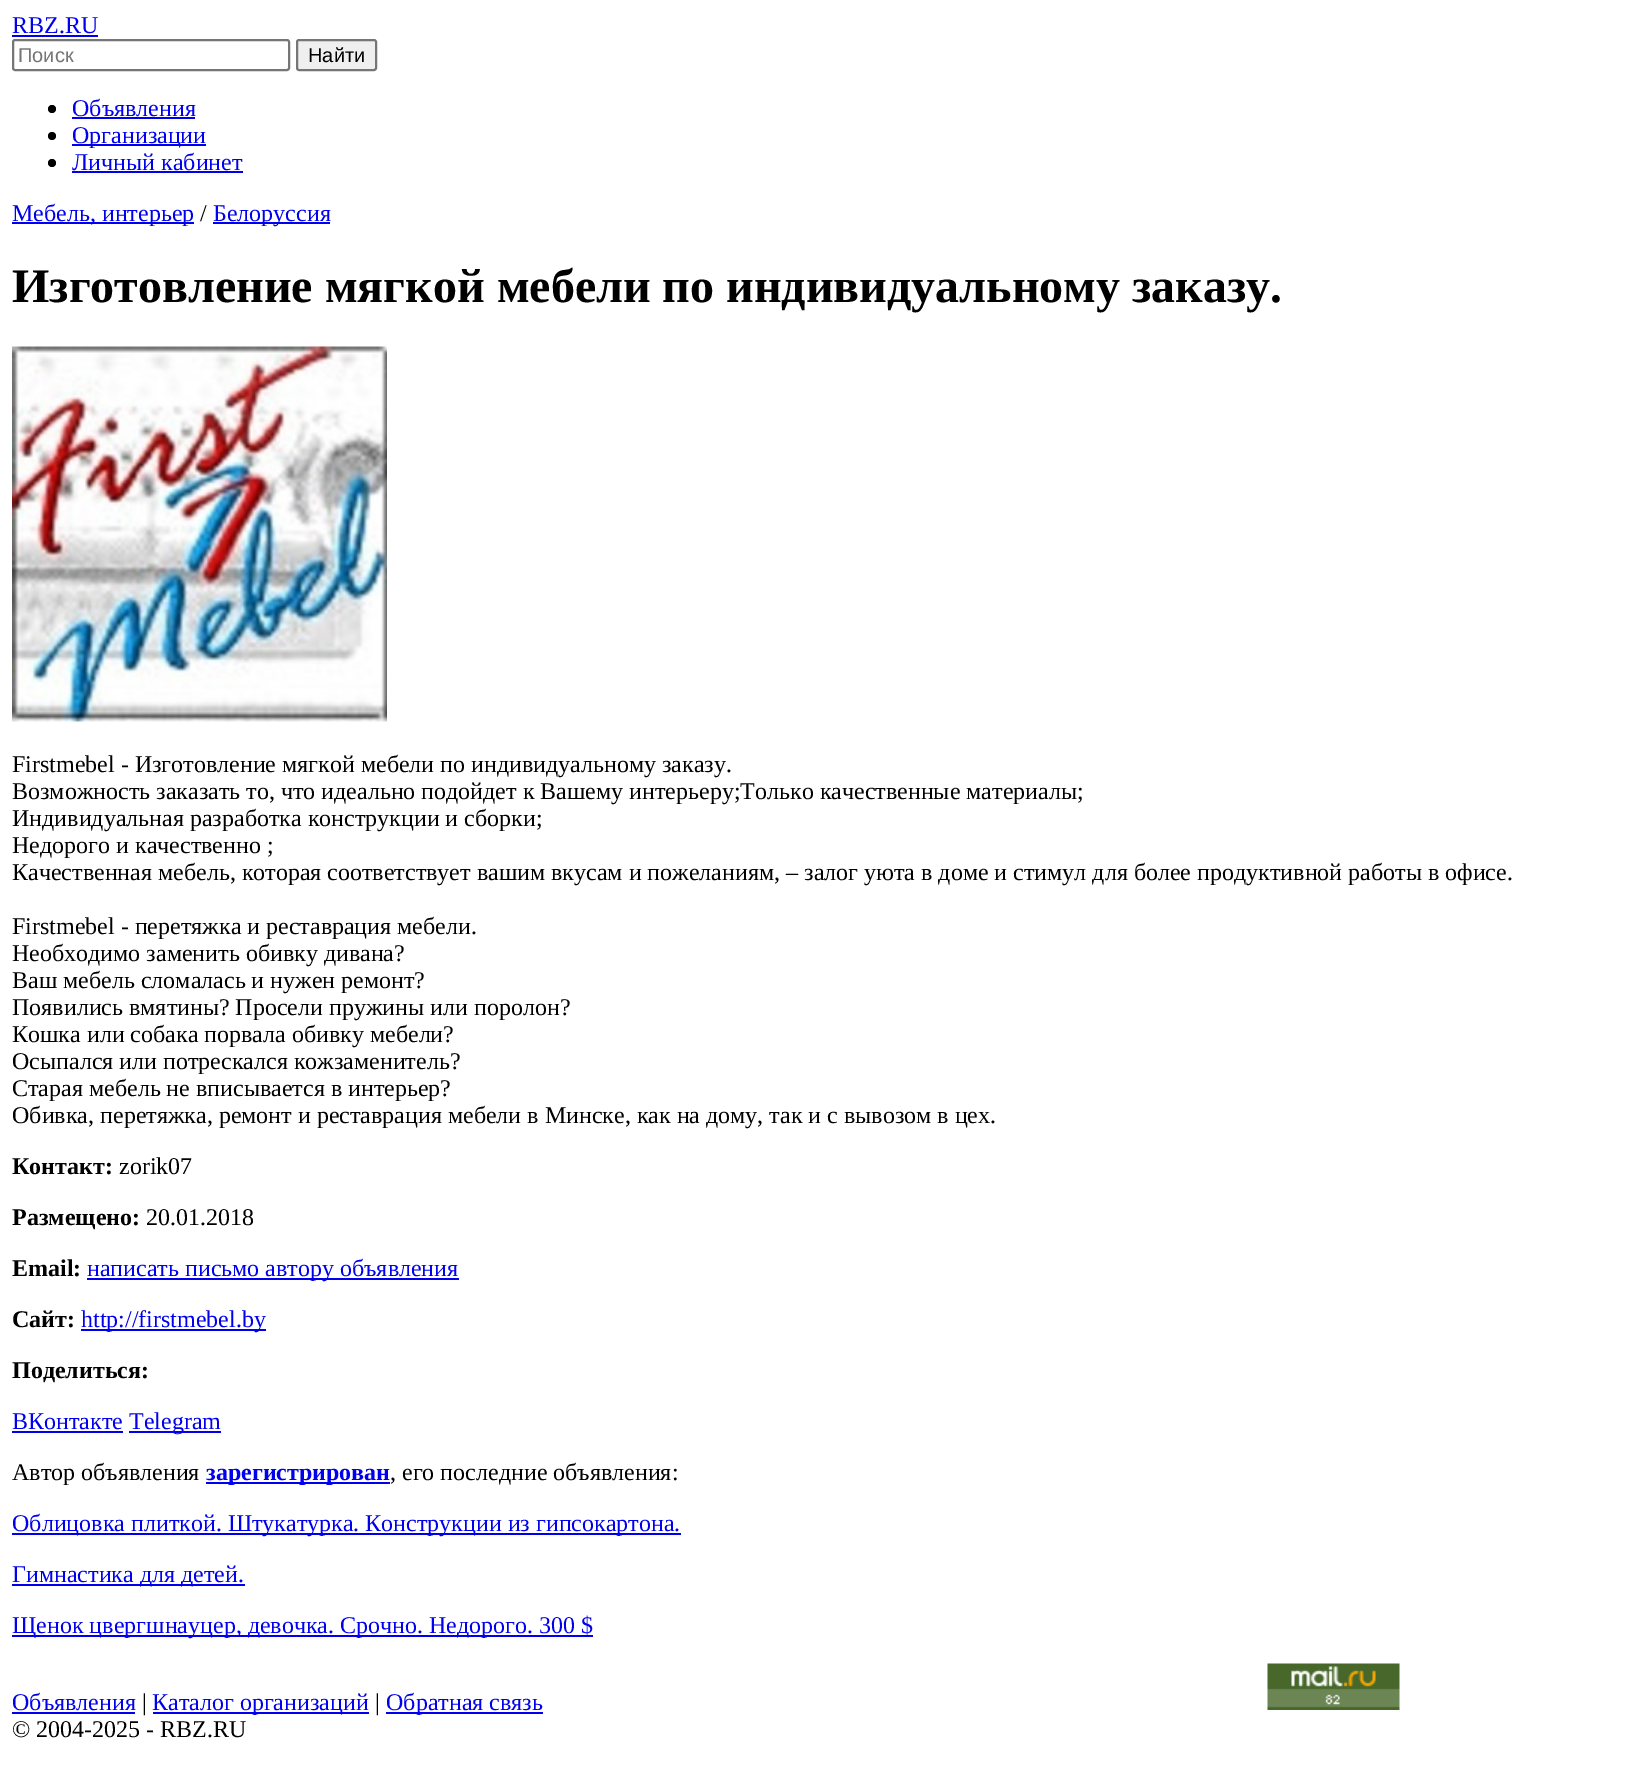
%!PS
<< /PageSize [1634 1779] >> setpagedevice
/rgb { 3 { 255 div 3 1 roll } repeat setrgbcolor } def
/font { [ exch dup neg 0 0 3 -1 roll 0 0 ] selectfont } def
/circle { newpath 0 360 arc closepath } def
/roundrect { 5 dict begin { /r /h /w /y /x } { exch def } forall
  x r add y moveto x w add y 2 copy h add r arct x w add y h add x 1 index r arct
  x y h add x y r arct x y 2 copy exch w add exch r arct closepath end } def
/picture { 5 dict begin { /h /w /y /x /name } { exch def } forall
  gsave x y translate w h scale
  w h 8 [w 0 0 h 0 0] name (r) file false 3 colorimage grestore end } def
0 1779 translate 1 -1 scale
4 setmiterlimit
255 255 255 rgb
0 0 1634 1779 rectfill
0 0 238 rgb
12 35 86 2 rectfill
118 118 118 rgb
2 setlinewidth
13 40 276 30 2 roundrect stroke
239 239 239 rgb
297 40 79 30 2 roundrect gsave fill grestore
118 118 118 rgb
stroke
0 0 0 rgb
52 109 4 circle fill
0 0 238 rgb
72 117 123 2 rectfill
0 0 0 rgb
52 136 4 circle fill
0 0 238 rgb
72 144 134 2 rectfill
0 0 0 rgb
52 163 4 circle fill
[
  [72 171 171 2 0 0 238]
  [12 222 182 2 0 0 238]
  [213 222 117 2 0 0 238]
] { aload pop rgb rectfill } forall
(img/1.rgb) 12 346 375 376 picture
[
  [87 1278 372 2 0 0 238]
  [81 1329 185 2 0 0 238]
  [12 1431 111 2 0 0 238]
  [129 1431 92 2 0 0 238]
  [206 1482 184 2 0 0 238]
  [12 1533 669 2 0 0 238]
  [12 1584 233 2 0 0 238]
  [12 1635 581 2 0 0 238]
  [12 1712 123 2 0 0 238]
  [153 1712 216 2 0 0 238]
  [386 1712 157 2 0 0 238]
] { aload pop rgb rectfill } forall
(img/2.rgb) 1267 1663 133 47 picture
/LiberationSerif-Regular 24 font
12 33 moveto (RBZ.RU) show
/LiberationSans-Regular 20 font
117 117 117 rgb
18 62 moveto (Поиск) show
0 0 0 rgb
308 62 moveto (Найти) show
/LiberationSerif-Regular 24 font
0 0 238 rgb
[
  [(Объявления) 72 116]
  [(Организации) 72 143]
  [(Личный кабинет) 72 170]
  [(Мебель, интерьер) 12 221]
] { aload pop moveto show } forall
0 0 0 rgb
200 221 moveto (/) show
0 0 238 rgb
213 221 moveto (Белоруссия) show
/LiberationSerif-Bold 48 font
0 0 0 rgb
12 302 moveto (Изготовление мягкой мебели по индивидуальному заказу.) show
/LiberationSerif-Regular 24 font
[
  [(Firstmebel - Изготовление мягкой мебели по индивидуальному заказу.) 12 772]
  [(Возможность заказать то, что идеально подойдет к Вашему интерьеру;Только качественные материалы;) 12 799]
  [(Индивидуальная разработка конструкции и сборки;) 12 826]
  [(Недорого и качественно ;) 12 853]
  [(Качественная мебель, которая соответствует вашим вкусам и пожеланиям, – залог уюта в доме и стимул для более продуктивной работы в офисе.) 12 880]
  [(Firstmebel - перетяжка и реставрация мебели.) 12 934]
  [(Необходимо заменить обивку дивана?) 12 961]
  [(Ваш мебель сломалась и нужен ремонт?) 12 988]
  [(Появились вмятины? Просели пружины или поролон?) 12 1015]
  [(Кошка или собака порвала обивку мебели?) 12 1042]
  [(Осыпался или потрескался кожзаменитель?) 12 1069]
  [(Старая мебель не вписывается в интерьер?) 12 1096]
  [(Обивка, перетяжка, ремонт и реставрация мебели в Минске, как на дому, так и с вывозом в цех.) 12 1123]
] { aload pop moveto show } forall
/LiberationSerif-Bold 24 font
12 1174 moveto (Контакт:) show
/LiberationSerif-Regular 24 font
119 1174 moveto (zorik07) show
/LiberationSerif-Bold 24 font
12 1225 moveto (Размещено:) show
/LiberationSerif-Regular 24 font
146 1225 moveto (20.01.2018) show
/LiberationSerif-Bold 24 font
12 1276 moveto (Email:) show
/LiberationSerif-Regular 24 font
0 0 238 rgb
87 1276 moveto (написать письмо автору объявления) show
/LiberationSerif-Bold 24 font
0 0 0 rgb
12 1327 moveto (Сайт:) show
/LiberationSerif-Regular 24 font
0 0 238 rgb
81 1327 moveto (http://firstmebel.by) show
/LiberationSerif-Bold 24 font
0 0 0 rgb
12 1378 moveto (Поделиться:) show
/LiberationSerif-Regular 24 font
0 0 238 rgb
12 1429 moveto (ВКонтакте) show
129 1429 moveto (Telegram) show
0 0 0 rgb
12 1480 moveto (Автор объявления) show
/LiberationSerif-Bold 24 font
0 0 238 rgb
206 1480 moveto (зарегистрирован) show
/LiberationSerif-Regular 24 font
0 0 0 rgb
390 1480 moveto (, его последние объявления:) show
0 0 238 rgb
[
  [(Облицовка плиткой. Штукатурка. Конструкции из гипсокартона.) 12 1531]
  [(Гимнастика для детей.) 12 1582]
  [(Щенок цвергшнауцер, девочка. Срочно. Недорого. 300 $) 12 1633]
  [(Объявления) 12 1710]
] { aload pop moveto show } forall
0 0 0 rgb
142 1710 moveto (|) show
0 0 238 rgb
152 1710 moveto (Каталог организаций) show
0 0 0 rgb
375 1710 moveto (|) show
0 0 238 rgb
386 1710 moveto (Обратная связь) show
0 0 0 rgb
12 1737 moveto (© 2004-2025 - RBZ.RU) show
showpage
